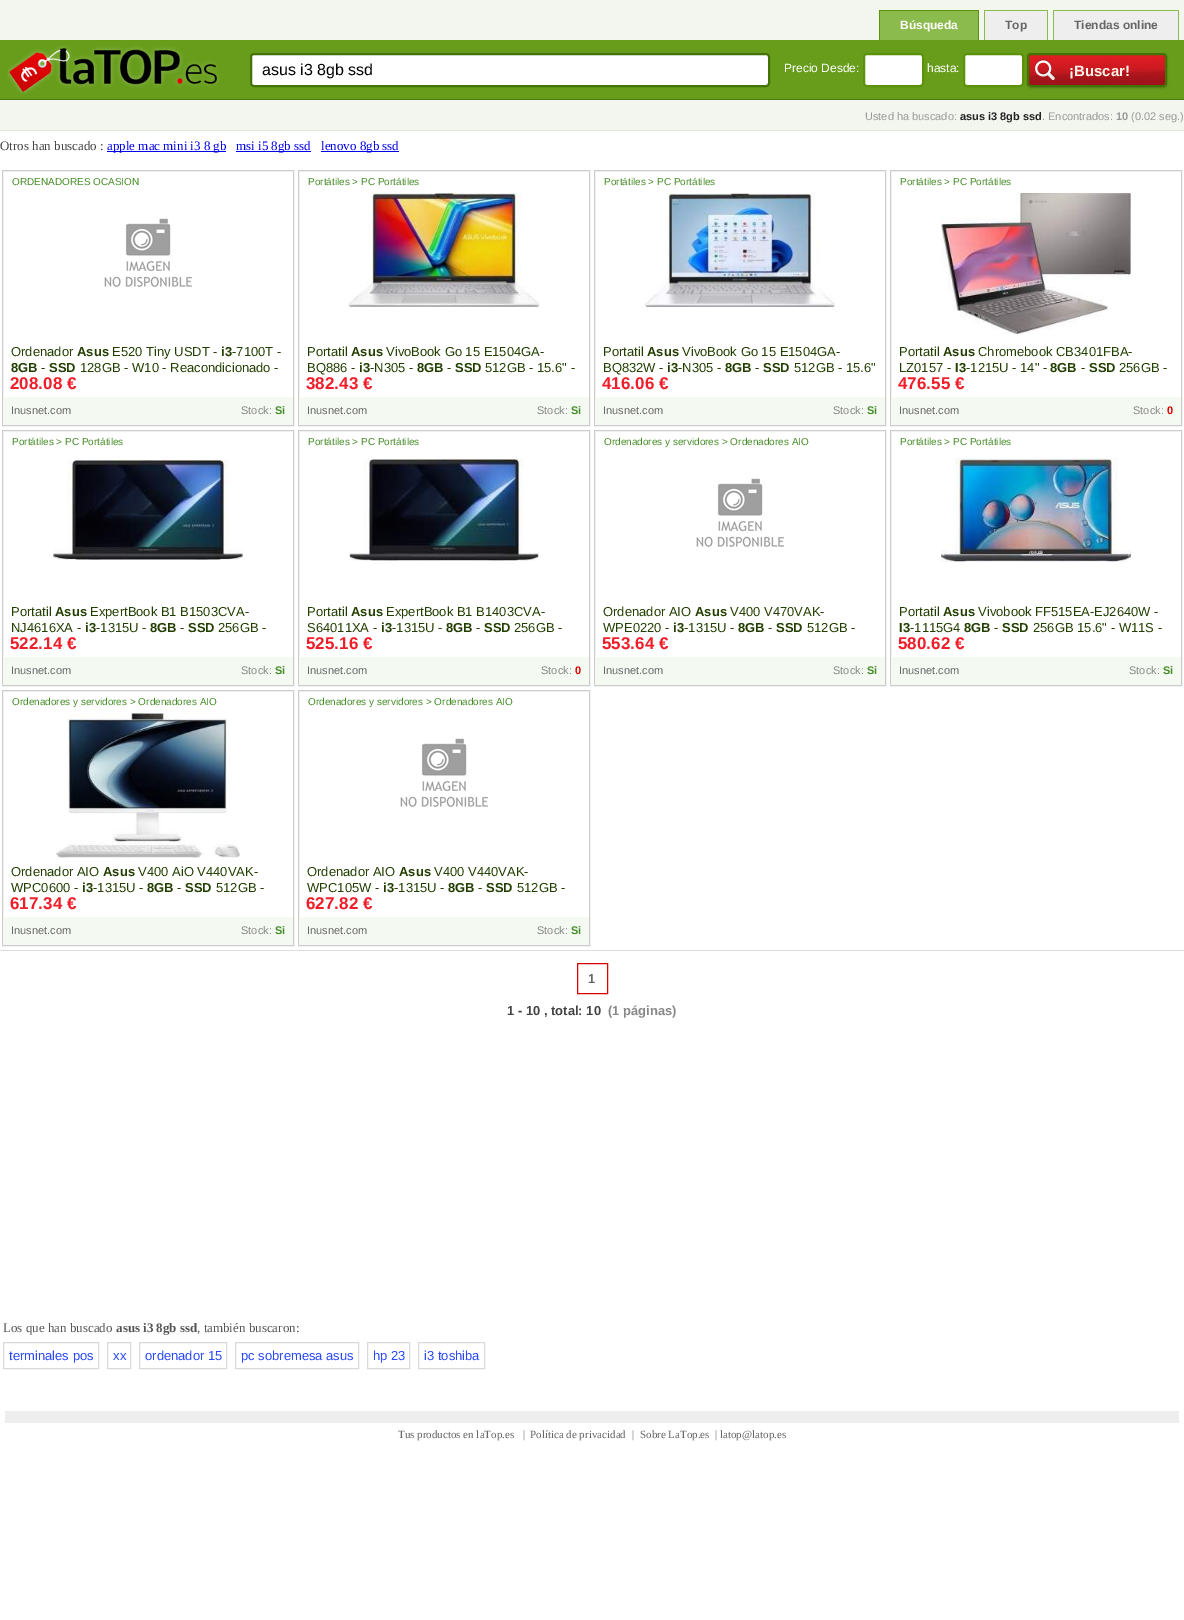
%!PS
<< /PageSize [1184 1620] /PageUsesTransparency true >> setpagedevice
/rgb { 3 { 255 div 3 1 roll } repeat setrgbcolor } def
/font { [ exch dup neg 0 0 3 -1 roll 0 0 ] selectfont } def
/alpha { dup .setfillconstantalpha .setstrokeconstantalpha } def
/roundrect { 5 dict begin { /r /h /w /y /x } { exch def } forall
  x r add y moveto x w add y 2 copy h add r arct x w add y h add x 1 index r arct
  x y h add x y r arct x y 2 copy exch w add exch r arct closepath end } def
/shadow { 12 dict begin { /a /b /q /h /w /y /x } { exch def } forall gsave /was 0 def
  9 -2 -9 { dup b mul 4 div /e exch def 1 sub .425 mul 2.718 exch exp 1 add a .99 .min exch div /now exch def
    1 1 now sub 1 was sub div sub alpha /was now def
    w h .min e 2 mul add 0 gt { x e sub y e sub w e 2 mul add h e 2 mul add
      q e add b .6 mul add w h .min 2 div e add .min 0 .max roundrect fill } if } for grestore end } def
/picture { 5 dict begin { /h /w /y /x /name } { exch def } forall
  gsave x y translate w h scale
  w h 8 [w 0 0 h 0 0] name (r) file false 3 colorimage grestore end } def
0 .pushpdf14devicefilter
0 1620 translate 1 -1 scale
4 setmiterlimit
255 255 255 rgb
0 0 1184 1620 rectfill
[
  [0 0 1184 40 243 246 239]
  [880 11 98 29 139 187 76]
  [879 10 100 1 90 146 9]
  [978 10 1 31 90 146 9]
  [879 10 1 31 90 146 9]
  [985 11 62 29 238 238 238]
  [984 10 64 1 139 187 76]
  [1047 10 1 31 139 187 76]
  [984 10 1 31 139 187 76]
  [1054 11 124 29 238 238 238]
  [1053 10 126 1 139 187 76]
  [1178 10 1 31 139 187 76]
  [1053 10 1 31 139 187 76]
  [0 100 1184 30 243 246 239]
  [0 130 1184 1 226 233 215]
  [0 40 1184 59 103 157 27]
  [0 99 1184 1 77 121 8]
] { aload pop rgb rectfill } forall
(img/1.rgb) 7 45 213 49 picture
255 255 255 rgb
251 54 518 32 3 roundrect gsave fill grestore
69 114 5 rgb
2 setlinewidth
stroke
255 255 255 rgb
864 54 59 32 3 roundrect gsave fill grestore
90 146 9 rgb
stroke
gsave
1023 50 moveto 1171 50 lineto 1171 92 lineto 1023 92 lineto closepath 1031 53 moveto 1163 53 lineto 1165 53 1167 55 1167 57 curveto 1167 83 lineto 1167 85 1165 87 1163 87 curveto 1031 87 lineto 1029 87 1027 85 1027 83 curveto 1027 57 lineto 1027 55 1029 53 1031 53 curveto closepath eoclip newpath
0 0 0 rgb
1027 54 140 34 4 1 0.2 shadow
grestore
255 255 255 rgb
964 54 59 32 3 roundrect gsave fill grestore
90 146 9 rgb
stroke
(img/2.rgb) 1029 55 138 30 picture
69 114 5 rgb
1028 54 138 32 3 roundrect stroke
[
  [107 151 119 1 0 0 238]
  [236 151 75 1 0 0 238]
  [321 151 78 1 0 0 238]
] { aload pop rgb rectfill } forall
204 204 204 rgb
1 setlinewidth
2.5 170.5 291 255 rectstroke
(img/3.rgb) 104 218 89 69 picture
244 249 242 rgb
3 397 290 28 rectfill
204 204 204 rgb
298.5 170.5 291 255 rectstroke
(img/4.rgb) 349 193 190 114 picture
244 249 242 rgb
299 397 290 28 rectfill
204 204 204 rgb
594.5 170.5 291 255 rectstroke
(img/5.rgb) 645 193 190 114 picture
244 249 242 rgb
595 397 290 28 rectfill
204 204 204 rgb
890.5 170.5 291 255 rectstroke
(img/6.rgb) 941 193 190 141 picture
244 249 242 rgb
891 397 290 28 rectfill
204 204 204 rgb
2.5 430.5 291 255 rectstroke
(img/7.rgb) 53 460 190 100 picture
244 249 242 rgb
3 657 290 28 rectfill
204 204 204 rgb
298.5 430.5 291 255 rectstroke
(img/8.rgb) 349 459 190 102 picture
244 249 242 rgb
299 657 290 28 rectfill
204 204 204 rgb
594.5 430.5 291 255 rectstroke
(img/3.rgb) 696 478 89 69 picture
244 249 242 rgb
595 657 290 28 rectfill
204 204 204 rgb
890.5 430.5 291 255 rectstroke
(img/9.rgb) 941 458 190 104 picture
244 249 242 rgb
891 657 290 28 rectfill
204 204 204 rgb
2.5 690.5 291 255 rectstroke
(img/10.rgb) 56 713 184 145 picture
244 249 242 rgb
3 917 290 28 rectfill
204 204 204 rgb
298.5 690.5 291 255 rectstroke
(img/3.rgb) 400 738 89 69 picture
244 249 242 rgb
299 917 290 28 rectfill
221 221 221 rgb
0 950 1184 1 rectfill
221 0 0 rgb
577.5 963.5 30 30 rectstroke
218 218 218 rgb
3.5 1342.5 95 26 rectstroke
107.5 1342.5 23 26 rectstroke
139.5 1342.5 87 26 rectstroke
235.5 1342.5 123 26 rectstroke
367.5 1342.5 42 26 rectstroke
418.5 1342.5 66 26 rectstroke
238 238 238 rgb
5 1411 1174 12 rectfill
/LiberationSans-Bold 12 font
255 255 255 rgb
900 29 moveto (Búsqueda) show
102 102 102 rgb
1005 29 moveto (Top) show
1074 29 moveto (Tiendas online) show
/LiberationSans-Regular 16 font
0 0 0 rgb
262 75 moveto (asus i3 8gb ssd) show
/LiberationSans-Regular 12 font
255 255 255 rgb
784 72 moveto (Precio Desde:) show
927 72 moveto (hasta:) show
/LiberationSans-Bold 15 font
254 244 233 rgb
1069 76 moveto (¡Buscar!) show
/LiberationSans-Regular 11 font
153 153 153 rgb
865 120 moveto (Usted ha buscado:) show
/LiberationSans-Bold 11 font
34 34 34 rgb
960 120 moveto (asus i3 8gb ssd) show
/LiberationSans-Regular 11 font
153 153 153 rgb
1042 120 moveto (. Encontrados:) show
/LiberationSans-Bold 11 font
1116 120 moveto (10) show
/LiberationSans-Regular 11 font
1131 120 moveto (\(0.02 seg.\)) show
/LiberationSerif-Regular 13 font
68 68 68 rgb
0 150 moveto (Otros han buscado :) show
0 0 238 rgb
[
  [(apple mac mini i3 8 gb) 107 150]
  [(msi i5 8gb ssd) 236 150]
  [(lenovo 8gb ssd) 321 150]
] { aload pop moveto show } forall
/LiberationSans-Regular 10 font
68 140 38 rgb
12 185 moveto (ORDENADORES OCASION) show
/LiberationSans-Regular 13 font
34 62 0 rgb
11 356 moveto (Ordenador) show
/LiberationSans-Bold 13 font
77 356 moveto (Asus) show
/LiberationSans-Regular 13 font
112 356 moveto (E520 Tiny USDT -) show
/LiberationSans-Bold 13 font
221 356 moveto (i3) show
/LiberationSans-Regular 13 font
232 356 moveto (-7100T -) show
/LiberationSans-Bold 13 font
11 372 moveto (8GB) show
/LiberationSans-Regular 13 font
41 372 moveto (-) show
/LiberationSans-Bold 13 font
49 372 moveto (SSD) show
/LiberationSans-Regular 13 font
80 372 moveto (128GB - W10 - Reacondicionado -) show
/LiberationSans-Bold 17 font
241 29 41 rgb
10 389 moveto (208.08 €) show
/LiberationSans-Regular 11 font
102 102 102 rgb
11 414 moveto (Inusnet.com) show
136 136 136 rgb
241 414 moveto (Stock:) show
/LiberationSans-Bold 11 font
68 140 38 rgb
275 414 moveto (Si) show
/LiberationSans-Regular 10 font
308 185 moveto (Portátiles > PC Portátiles) show
/LiberationSans-Regular 13 font
34 62 0 rgb
307 356 moveto (Portatil) show
/LiberationSans-Bold 13 font
351 356 moveto (Asus) show
/LiberationSans-Regular 13 font
386 356 moveto (VivoBook Go 15 E1504GA-) show
307 372 moveto (BQ886 -) show
/LiberationSans-Bold 13 font
359 372 moveto (i3) show
/LiberationSans-Regular 13 font
370 372 moveto (-N305 -) show
/LiberationSans-Bold 13 font
417 372 moveto (8GB) show
/LiberationSans-Regular 13 font
447 372 moveto (-) show
/LiberationSans-Bold 13 font
455 372 moveto (SSD) show
/LiberationSans-Regular 13 font
485 372 moveto (512GB - 15.6" -) show
/LiberationSans-Bold 17 font
241 29 41 rgb
306 389 moveto (382.43 €) show
/LiberationSans-Regular 11 font
102 102 102 rgb
307 414 moveto (Inusnet.com) show
136 136 136 rgb
537 414 moveto (Stock:) show
/LiberationSans-Bold 11 font
68 140 38 rgb
571 414 moveto (Si) show
/LiberationSans-Regular 10 font
604 185 moveto (Portátiles > PC Portátiles) show
/LiberationSans-Regular 13 font
34 62 0 rgb
603 356 moveto (Portatil) show
/LiberationSans-Bold 13 font
647 356 moveto (Asus) show
/LiberationSans-Regular 13 font
682 356 moveto (VivoBook Go 15 E1504GA-) show
603 372 moveto (BQ832W -) show
/LiberationSans-Bold 13 font
667 372 moveto (i3) show
/LiberationSans-Regular 13 font
678 372 moveto (-N305 -) show
/LiberationSans-Bold 13 font
725 372 moveto (8GB) show
/LiberationSans-Regular 13 font
755 372 moveto (-) show
/LiberationSans-Bold 13 font
763 372 moveto (SSD) show
/LiberationSans-Regular 13 font
794 372 moveto (512GB - 15.6") show
/LiberationSans-Bold 17 font
241 29 41 rgb
602 389 moveto (416.06 €) show
/LiberationSans-Regular 11 font
102 102 102 rgb
603 414 moveto (Inusnet.com) show
136 136 136 rgb
833 414 moveto (Stock:) show
/LiberationSans-Bold 11 font
68 140 38 rgb
867 414 moveto (Si) show
/LiberationSans-Regular 10 font
900 185 moveto (Portátiles > PC Portátiles) show
/LiberationSans-Regular 13 font
34 62 0 rgb
899 356 moveto (Portatil) show
/LiberationSans-Bold 13 font
943 356 moveto (Asus) show
/LiberationSans-Regular 13 font
978 356 moveto (Chromebook CB3401FBA-) show
899 372 moveto (LZ0157 -) show
/LiberationSans-Bold 13 font
955 372 moveto (I3) show
/LiberationSans-Regular 13 font
966 372 moveto (-1215U - 14" -) show
/LiberationSans-Bold 13 font
1050 372 moveto (8GB) show
/LiberationSans-Regular 13 font
1081 372 moveto (-) show
/LiberationSans-Bold 13 font
1089 372 moveto (SSD) show
/LiberationSans-Regular 13 font
1119 372 moveto (256GB -) show
/LiberationSans-Bold 17 font
241 29 41 rgb
898 389 moveto (476.55 €) show
/LiberationSans-Regular 11 font
102 102 102 rgb
899 414 moveto (Inusnet.com) show
136 136 136 rgb
1133 414 moveto (Stock:) show
/LiberationSans-Bold 11 font
221 0 0 rgb
1167 414 moveto (0) show
/LiberationSans-Regular 10 font
68 140 38 rgb
12 445 moveto (Portátiles > PC Portátiles) show
/LiberationSans-Regular 13 font
34 62 0 rgb
11 616 moveto (Portatil) show
/LiberationSans-Bold 13 font
55 616 moveto (Asus) show
/LiberationSans-Regular 13 font
90 616 moveto (ExpertBook B1 B1503CVA-) show
11 632 moveto (NJ4616XA -) show
/LiberationSans-Bold 13 font
85 632 moveto (i3) show
/LiberationSans-Regular 13 font
96 632 moveto (-1315U -) show
/LiberationSans-Bold 13 font
150 632 moveto (8GB) show
/LiberationSans-Regular 13 font
180 632 moveto (-) show
/LiberationSans-Bold 13 font
188 632 moveto (SSD) show
/LiberationSans-Regular 13 font
218 632 moveto (256GB -) show
/LiberationSans-Bold 17 font
241 29 41 rgb
10 649 moveto (522.14 €) show
/LiberationSans-Regular 11 font
102 102 102 rgb
11 674 moveto (Inusnet.com) show
136 136 136 rgb
241 674 moveto (Stock:) show
/LiberationSans-Bold 11 font
68 140 38 rgb
275 674 moveto (Si) show
/LiberationSans-Regular 10 font
308 445 moveto (Portátiles > PC Portátiles) show
/LiberationSans-Regular 13 font
34 62 0 rgb
307 616 moveto (Portatil) show
/LiberationSans-Bold 13 font
351 616 moveto (Asus) show
/LiberationSans-Regular 13 font
386 616 moveto (ExpertBook B1 B1403CVA-) show
307 632 moveto (S64011XA -) show
/LiberationSans-Bold 13 font
381 632 moveto (i3) show
/LiberationSans-Regular 13 font
392 632 moveto (-1315U -) show
/LiberationSans-Bold 13 font
446 632 moveto (8GB) show
/LiberationSans-Regular 13 font
476 632 moveto (-) show
/LiberationSans-Bold 13 font
484 632 moveto (SSD) show
/LiberationSans-Regular 13 font
514 632 moveto (256GB -) show
/LiberationSans-Bold 17 font
241 29 41 rgb
306 649 moveto (525.16 €) show
/LiberationSans-Regular 11 font
102 102 102 rgb
307 674 moveto (Inusnet.com) show
136 136 136 rgb
541 674 moveto (Stock:) show
/LiberationSans-Bold 11 font
221 0 0 rgb
575 674 moveto (0) show
/LiberationSans-Regular 10 font
68 140 38 rgb
604 445 moveto (Ordenadores y servidores > Ordenadores AIO) show
/LiberationSans-Regular 13 font
34 62 0 rgb
603 616 moveto (Ordenador AIO) show
/LiberationSans-Bold 13 font
695 616 moveto (Asus) show
/LiberationSans-Regular 13 font
730 616 moveto (V400 V470VAK-) show
603 632 moveto (WPE0220 -) show
/LiberationSans-Bold 13 font
673 632 moveto (i3) show
/LiberationSans-Regular 13 font
684 632 moveto (-1315U -) show
/LiberationSans-Bold 13 font
738 632 moveto (8GB) show
/LiberationSans-Regular 13 font
768 632 moveto (-) show
/LiberationSans-Bold 13 font
776 632 moveto (SSD) show
/LiberationSans-Regular 13 font
807 632 moveto (512GB -) show
/LiberationSans-Bold 17 font
241 29 41 rgb
602 649 moveto (553.64 €) show
/LiberationSans-Regular 11 font
102 102 102 rgb
603 674 moveto (Inusnet.com) show
136 136 136 rgb
833 674 moveto (Stock:) show
/LiberationSans-Bold 11 font
68 140 38 rgb
867 674 moveto (Si) show
/LiberationSans-Regular 10 font
900 445 moveto (Portátiles > PC Portátiles) show
/LiberationSans-Regular 13 font
34 62 0 rgb
899 616 moveto (Portatil) show
/LiberationSans-Bold 13 font
943 616 moveto (Asus) show
/LiberationSans-Regular 13 font
978 616 moveto (Vivobook FF515EA-EJ2640W -) show
/LiberationSans-Bold 13 font
899 632 moveto (I3) show
/LiberationSans-Regular 13 font
910 632 moveto (-1115G4) show
/LiberationSans-Bold 13 font
964 632 moveto (8GB) show
/LiberationSans-Regular 13 font
994 632 moveto (-) show
/LiberationSans-Bold 13 font
1002 632 moveto (SSD) show
/LiberationSans-Regular 13 font
1033 632 moveto (256GB 15.6" - W11S -) show
/LiberationSans-Bold 17 font
241 29 41 rgb
898 649 moveto (580.62 €) show
/LiberationSans-Regular 11 font
102 102 102 rgb
899 674 moveto (Inusnet.com) show
136 136 136 rgb
1129 674 moveto (Stock:) show
/LiberationSans-Bold 11 font
68 140 38 rgb
1163 674 moveto (Si) show
/LiberationSans-Regular 10 font
12 705 moveto (Ordenadores y servidores > Ordenadores AIO) show
/LiberationSans-Regular 13 font
34 62 0 rgb
11 876 moveto (Ordenador AIO) show
/LiberationSans-Bold 13 font
103 876 moveto (Asus) show
/LiberationSans-Regular 13 font
138 876 moveto (V400 AiO V440VAK-) show
11 892 moveto (WPC0600 -) show
/LiberationSans-Bold 13 font
82 892 moveto (i3) show
/LiberationSans-Regular 13 font
93 892 moveto (-1315U -) show
/LiberationSans-Bold 13 font
147 892 moveto (8GB) show
/LiberationSans-Regular 13 font
177 892 moveto (-) show
/LiberationSans-Bold 13 font
185 892 moveto (SSD) show
/LiberationSans-Regular 13 font
216 892 moveto (512GB -) show
/LiberationSans-Bold 17 font
241 29 41 rgb
10 909 moveto (617.34 €) show
/LiberationSans-Regular 11 font
102 102 102 rgb
11 934 moveto (Inusnet.com) show
136 136 136 rgb
241 934 moveto (Stock:) show
/LiberationSans-Bold 11 font
68 140 38 rgb
275 934 moveto (Si) show
/LiberationSans-Regular 10 font
308 705 moveto (Ordenadores y servidores > Ordenadores AIO) show
/LiberationSans-Regular 13 font
34 62 0 rgb
307 876 moveto (Ordenador AIO) show
/LiberationSans-Bold 13 font
399 876 moveto (Asus) show
/LiberationSans-Regular 13 font
434 876 moveto (V400 V440VAK-) show
307 892 moveto (WPC105W -) show
/LiberationSans-Bold 13 font
383 892 moveto (i3) show
/LiberationSans-Regular 13 font
394 892 moveto (-1315U -) show
/LiberationSans-Bold 13 font
448 892 moveto (8GB) show
/LiberationSans-Regular 13 font
478 892 moveto (-) show
/LiberationSans-Bold 13 font
486 892 moveto (SSD) show
/LiberationSans-Regular 13 font
517 892 moveto (512GB -) show
/LiberationSans-Bold 17 font
241 29 41 rgb
306 909 moveto (627.82 €) show
/LiberationSans-Regular 11 font
102 102 102 rgb
307 934 moveto (Inusnet.com) show
136 136 136 rgb
537 934 moveto (Stock:) show
/LiberationSans-Bold 11 font
68 140 38 rgb
571 934 moveto (Si) show
/LiberationSans-Bold 13 font
102 102 102 rgb
588 983 moveto (1) show
68 68 68 rgb
507 1015 moveto (1 - 10 , total: 10) show
136 136 136 rgb
608 1015 moveto (\(1 páginas\)) show
/LiberationSerif-Regular 13 font
85 85 85 rgb
3 1332 moveto (Los que han buscado) show
/LiberationSerif-Bold 13 font
116 1332 moveto (asus i3 8gb ssd) show
/LiberationSerif-Regular 13 font
197 1332 moveto (, también buscaron:) show
/LiberationSans-Regular 13 font
40 72 255 rgb
[
  [(terminales pos) 9 1360]
  [(xx) 113 1360]
  [(ordenador 15) 145 1360]
  [(pc sobremesa asus) 241 1360]
  [(hp 23) 373 1360]
  [(i3 toshiba) 424 1360]
] { aload pop moveto show } forall
/LiberationSerif-Regular 11 font
102 102 102 rgb
[
  [(Tus productos en laTop.es) 398 1438]
  [(|) 523 1438]
  [(Política de privacidad) 530 1438]
  [(|) 632 1438]
  [(Sobre LaTop.es) 640 1438]
  [(| latop@latop.es) 715 1438]
] { aload pop moveto show } forall
.poppdf14devicefilter showpage
